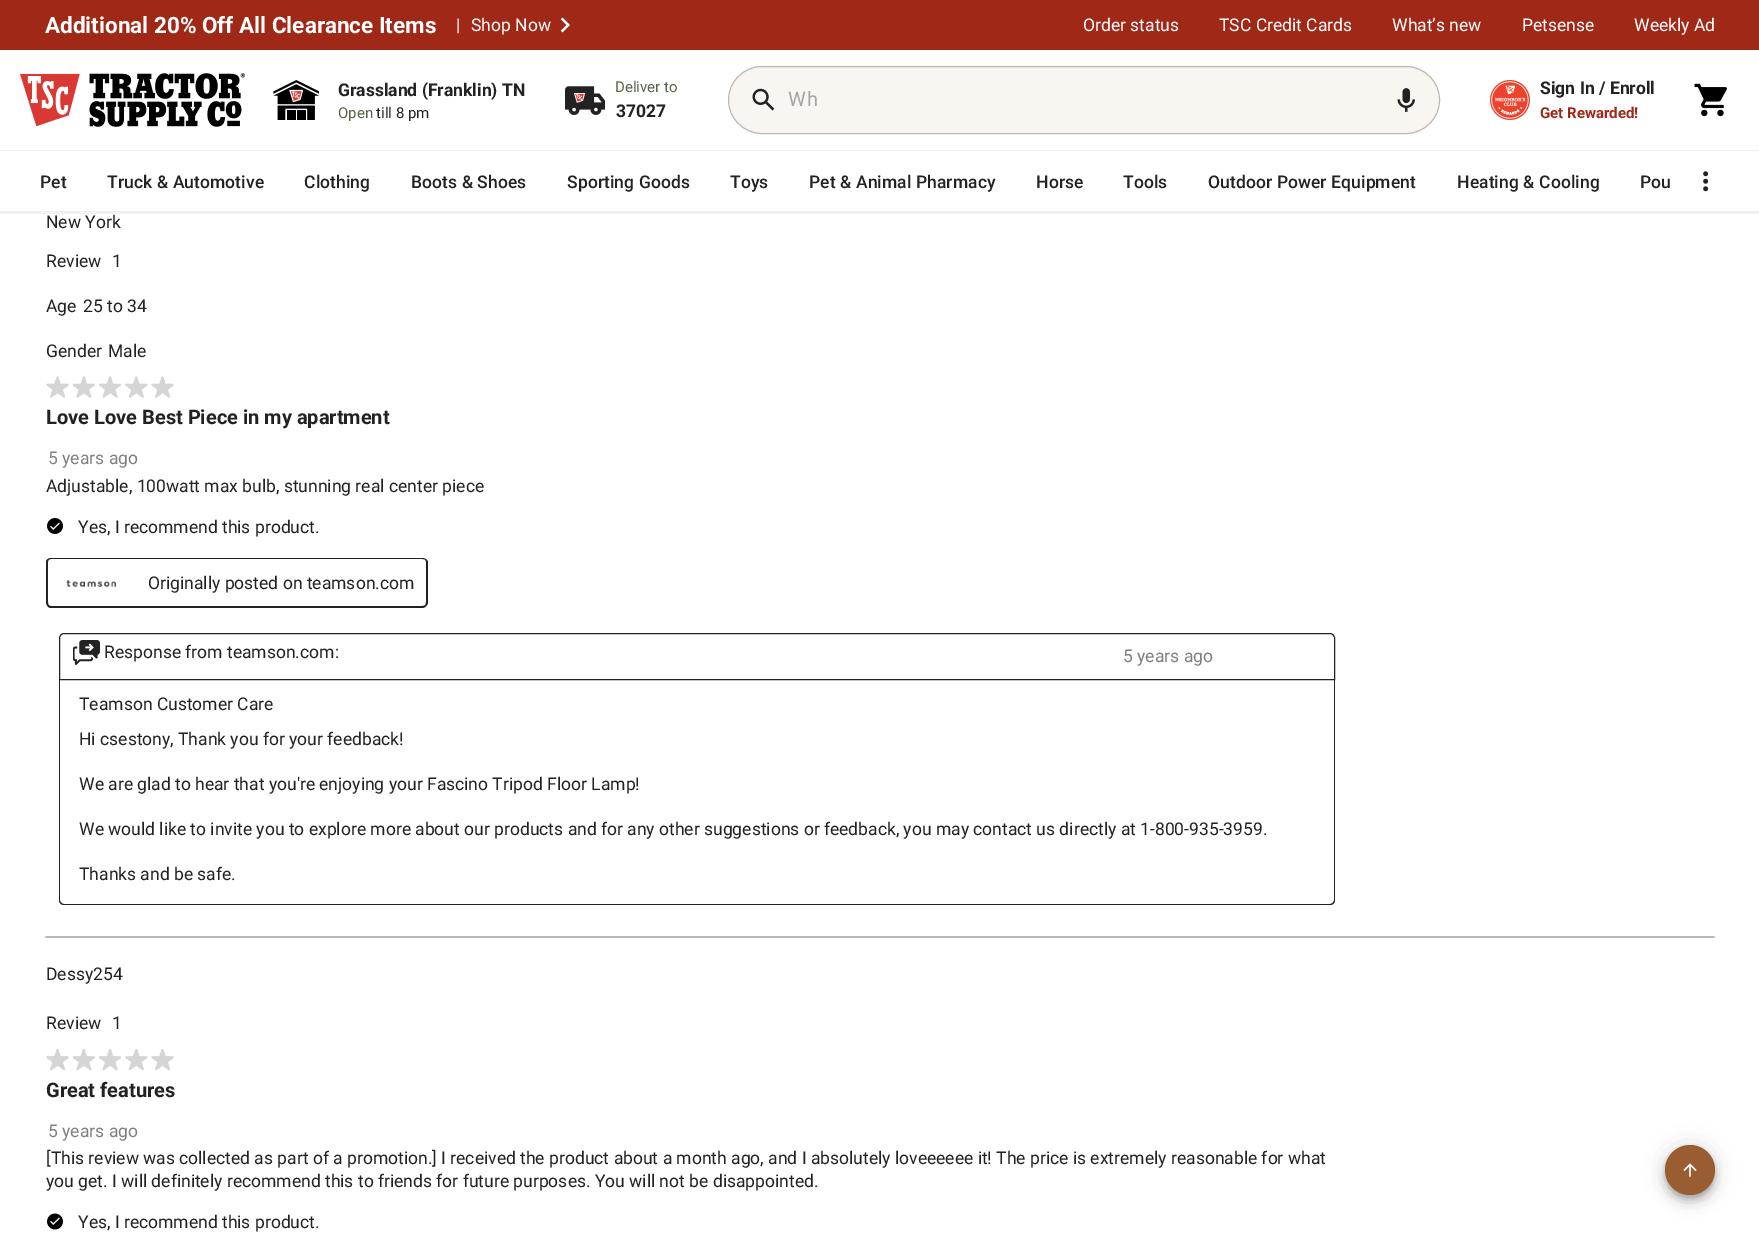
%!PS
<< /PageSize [1759 1240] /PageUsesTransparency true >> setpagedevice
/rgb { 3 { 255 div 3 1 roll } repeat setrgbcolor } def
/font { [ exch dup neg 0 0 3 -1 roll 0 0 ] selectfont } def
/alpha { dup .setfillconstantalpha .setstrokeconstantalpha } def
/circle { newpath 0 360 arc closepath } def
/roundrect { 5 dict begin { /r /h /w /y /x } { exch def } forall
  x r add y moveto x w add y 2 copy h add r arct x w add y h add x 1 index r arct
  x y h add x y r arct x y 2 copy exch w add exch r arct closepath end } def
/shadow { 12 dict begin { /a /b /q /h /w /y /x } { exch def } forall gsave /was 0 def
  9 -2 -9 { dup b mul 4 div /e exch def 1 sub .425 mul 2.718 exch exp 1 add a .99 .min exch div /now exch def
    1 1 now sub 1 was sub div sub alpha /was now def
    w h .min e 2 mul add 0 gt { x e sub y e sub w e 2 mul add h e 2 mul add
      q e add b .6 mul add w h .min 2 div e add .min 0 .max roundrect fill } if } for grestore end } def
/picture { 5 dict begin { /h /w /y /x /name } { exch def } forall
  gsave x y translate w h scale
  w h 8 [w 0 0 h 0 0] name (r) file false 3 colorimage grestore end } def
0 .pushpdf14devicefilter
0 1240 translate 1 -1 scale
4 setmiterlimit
255 255 255 rgb
0 0 1759 1240 rectfill
160 40 23 rgb
0 0 1759 50 rectfill
(img/1.rgb) 560 17 10 16 picture
(img/2.rgb) 20 73 225 54 picture
(img/3.rgb) 273 80 46 40 picture
(img/4.rgb) 565 86 40 29 picture
249 246 242 rgb
728.5 66.5 711 67 33.5 roundrect gsave fill grestore
188 183 178 rgb
stroke
(img/5.rgb) 752 88 23 23 picture
(img/6.rgb) 1397 88 18 24 picture
(img/7.rgb) 1490 80 40 40 picture
(img/8.rgb) 1694 83 33 34 picture
242 241 240 rgb
0 150 1759 1 rectfill
(img/9.rgb) 1703 171 6 21 picture
0 211 1759 3 rectfill
188 183 179 rgb
1715 938 moveto 45 938 lineto 46 936 lineto 1714 936 lineto closepath fill
(img/10.rgb) 46 376 23 22 picture
(img/11.rgb) 73 376 22 22 picture
(img/12.rgb) 99 376 22 22 picture
(img/13.rgb) 125 376 23 22 picture
(img/10.rgb) 151 376 23 22 picture
(img/14.rgb) 47 518 16 16 picture
34 34 34 rgb
51 558 moveto 135 558 lineto 135 608 lineto 51 608 lineto 48 608 46 605 46 602 curveto 46 562 lineto 46 560 48 558 51 558 curveto closepath 51 559 moveto 135 559 lineto 135 606 lineto 51 606 lineto 49 606 48 605 48 602 curveto 48 562 lineto 48 560 49 559 51 559 curveto closepath eofill
(img/15.rgb) 66 580 50 7 picture
135 558 moveto 422 558 lineto 425 558 428 560 428 562 curveto 428 602 lineto 428 605 425 608 422 608 curveto 135 608 lineto closepath 135 559 moveto 422 559 lineto 425 559 426 560 426 562 curveto 426 602 lineto 426 605 425 606 422 606 curveto 135 606 lineto closepath eofill
64 633.5 moveto 1330 633.5 lineto 1332.5 633.5 1334.5 635.5 1334.5 638 curveto 1334.5 679.5 lineto 59.5 679.5 lineto 59.5 638 lineto 59.5 635.5 61.5 633.5 64 633.5 curveto closepath stroke
(img/16.rgb) 73 640 27 25 picture
59 680 moveto 1335 680 lineto 1335 900 lineto 1335 903 1333 905 1330 905 curveto 64 905 lineto 61 905 59 903 59 900 curveto closepath 60 680 moveto 1334 680 lineto 1334 900 lineto 1334 902 1332 904 1330 904 curveto 64 904 lineto 62 904 60 902 60 900 curveto closepath eofill
(img/17.rgb) 46 1049 23 22 picture
(img/18.rgb) 73 1049 22 22 picture
(img/19.rgb) 99 1049 22 22 picture
(img/20.rgb) 125 1049 23 22 picture
(img/17.rgb) 151 1049 23 22 picture
(img/21.rgb) 47 1213 16 17 picture
0 0 0 rgb
1665 1146 50 50 25 11 0.12 shadow
1665 1153 50 50 25 6 0.14 shadow
1666 1150 48 48 24 3 0.2 shadow
154 93 49 rgb
1690 1170 25 circle fill
(img/22.rgb) 1683 1163 14 14 picture
/Roboto-Bold 22.5 font
255 255 255 rgb
45 33 moveto (Additional 20% Off All Clearance Items) show
/Roboto-Regular 17.5 font
[
  [(|) 456 31]
  [(Shop Now) 471 31]
  [(Order status) 1083 31]
  [(TSC Credit Cards) 1219 31]
  [(What’s new) 1392 31]
  [(Petsense) 1522 31]
  [(Weekly Ad) 1634 31]
] { aload pop moveto show } forall
/Roboto-Bold 17.5 font
34 34 34 rgb
338 96 moveto (Grassland \(Franklin\) TN) show
/Roboto-Regular 15 font
87 100 70 rgb
338 118 moveto (Open) show
34 34 34 rgb
376 118 moveto (till 8 pm) show
87 100 70 rgb
615 92 moveto (Deliver to) show
/Roboto-Bold 17.5 font
34 34 34 rgb
616 117 moveto (37027) show
/Roboto-Regular 20 font
166 164 162 rgb
788 106 moveto 1 0 (Wh) ashow
/Roboto-Bold 17.5 font
34 34 34 rgb
1540 94 moveto (Sign In / Enroll) show
/Roboto-Bold 15 font
160 40 23 rgb
1540 118 moveto (Get Rewarded!) show
/Roboto-Medium 17.5 font
34 34 34 rgb
40 188 moveto 0.1 0 (Pet) ashow
107 188 moveto 0.1 0 (Truck & Automotive) ashow
304 188 moveto 0.1 0 (Clothing) ashow
411 188 moveto 0.1 0 (Boots & Shoes) ashow
567 188 moveto 0.1 0 (Sporting Goods) ashow
730 188 moveto 0.1 0 (Toys) ashow
809 188 moveto 0.1 0 (Pet & Animal Pharmacy) ashow
1036 188 moveto 0.1 0 (Horse) ashow
1123 188 moveto 0.1 0 (Tools) ashow
1208 188 moveto 0.1 0 (Outdoor Power Equipment) ashow
1457 188 moveto 0.1 0 (Heating & Cooling) ashow
1640 188 moveto 0.1 0 (Pou) ashow
/Roboto-Regular 17.5 font
[
  [(New York) 46 228]
  [(Review) 46 267]
  [(1) 112 267]
  [(Age) 46 312]
  [(25 to 34) 83 312]
  [(Gender) 46 357]
  [(Male) 108 357]
] { aload pop moveto show } forall
/Roboto-Bold 20 font
46 424 moveto (Love Love Best Piece in my apartment) show
/Roboto-Regular 17.5 font
128 128 128 rgb
48 464 moveto (5 years ago) show
34 34 34 rgb
[
  [(Adjustable, 100watt max bulb, stunning real center piece) 46 492]
  [(Yes, I recommend this product.) 78 533]
  [(Originally posted on teamson.com) 148 589]
  [(Response from teamson.com:) 104 658]
] { aload pop moveto show } forall
128 128 128 rgb
1123 662 moveto (5 years ago) show
34 34 34 rgb
[
  [(Teamson Customer Care) 79 710]
  [(Hi csestony, Thank you for your feedback!) 79 745]
  [(We are glad to hear that you're enjoying your Fascino Tripod Floor Lamp!) 79 790]
  [(We would like to invite you to explore more about our products and for any other suggestions or feedback, you may contact us directly at 1-800-935-3959.) 79 835]
  [(Thanks and be safe.) 79 880]
  [(Dessy254) 46 980]
  [(Review) 46 1029]
  [(1) 112 1029]
] { aload pop moveto show } forall
/Roboto-Bold 20 font
46 1097 moveto (Great features) show
/Roboto-Regular 17.5 font
128 128 128 rgb
48 1137 moveto (5 years ago) show
34 34 34 rgb
[
  [([This review was collected as part of a promotion.] I received the product about a month ago, and I absolutely loveeeeee it! The price is extremely reasonable for what) 46 1164]
  [(you get. I will definitely recommend this to friends for future purposes. You will not be disappointed.) 46 1187]
  [(Yes, I recommend this product.) 78 1228]
] { aload pop moveto show } forall
.poppdf14devicefilter showpage
